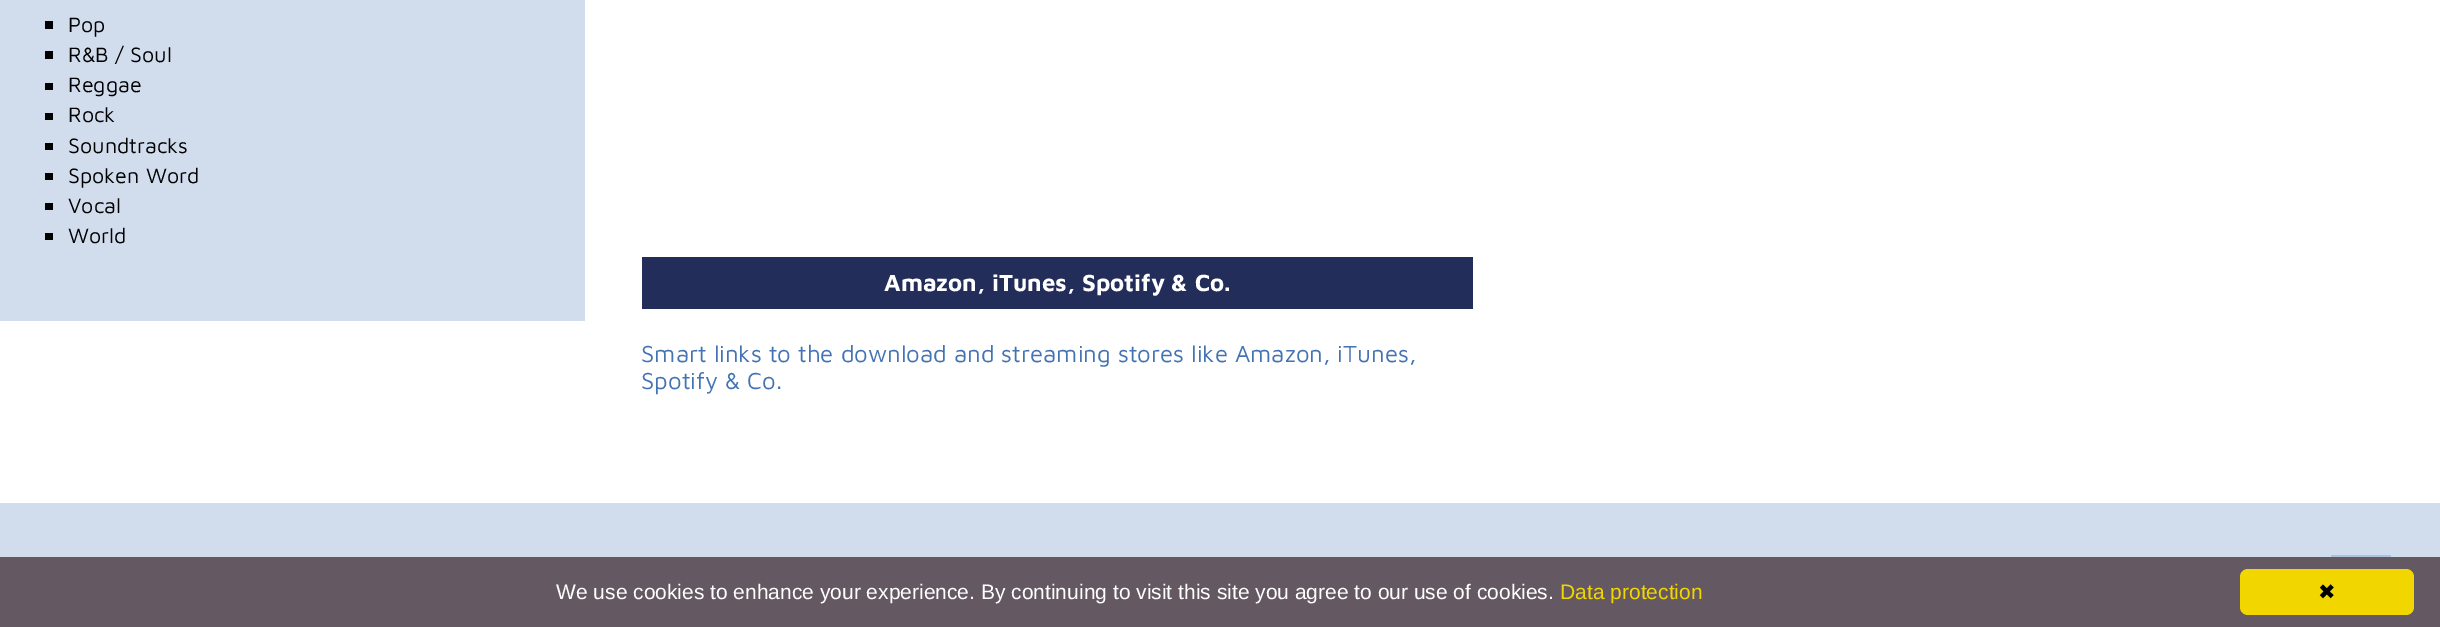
%!PS
<< /PageSize [2440 627] >> setpagedevice
/rgb { 3 { 255 div 3 1 roll } repeat setrgbcolor } def
/font { [ exch dup neg 0 0 3 -1 roll 0 0 ] selectfont } def
/roundrect { 5 dict begin { /r /h /w /y /x } { exch def } forall
  x r add y moveto x w add y 2 copy h add r arct x w add y h add x 1 index r arct
  x y h add x y r arct x y 2 copy exch w add exch r arct closepath end } def
0 627 translate 1 -1 scale
4 setmiterlimit
255 255 255 rgb
0 0 2440 627 rectfill
[
  [0 0 585 321 209 221 237]
  [45 21 8 8 0 0 0]
  [45 51 8 8 0 0 0]
  [45 83 8 7 0 0 0]
  [45 113 8 7 0 0 0]
  [45 143 8 7 0 0 0]
  [45 173 8 7 0 0 0]
  [45 203 8 7 0 0 0]
  [45 233 8 7 0 0 0]
  [642 257 831 52 35 45 90]
  [0 503 2440 54 209 221 237]
  [2331 555 60 2 171 193 222]
  [0 557 2440 70 100 88 98]
] { aload pop rgb rectfill } forall
241 214 0 rgb
2240 569 174 46 8 roundrect fill
/MavenPro-Regular 21.5 font
0 0 0 rgb
[
  [(Pop) 68 32]
  [(R&B / Soul) 68 62]
  [(Reggae) 68 92]
  [(Rock) 68 122]
  [(Soundtracks) 68 153]
  [(Spoken Word) 68 183]
  [(Vocal) 68 213]
  [(World) 68 243]
] { aload pop moveto show } forall
/MavenPro-Bold 24 font
255 255 255 rgb
884 291 moveto (Amazon, iTunes, Spotify & Co.) show
/MavenPro-Regular 24 font
67 115 179 rgb
641 362 moveto (Smart links to the download and streaming stores like Amazon, iTunes,) show
641 389 moveto (Spotify & Co.) show
/LiberationSans-Regular 21 font
255 255 255 rgb
556 599 moveto (We use cookies to enhance your experience. By continuing to visit this site you agree to our use of cookies.) show
241 214 0 rgb
1560 599 moveto (Data protection) show
/DejaVuSans-Regular 21 font
0 0 0 rgb
2318 599 moveto (✖) show
showpage
